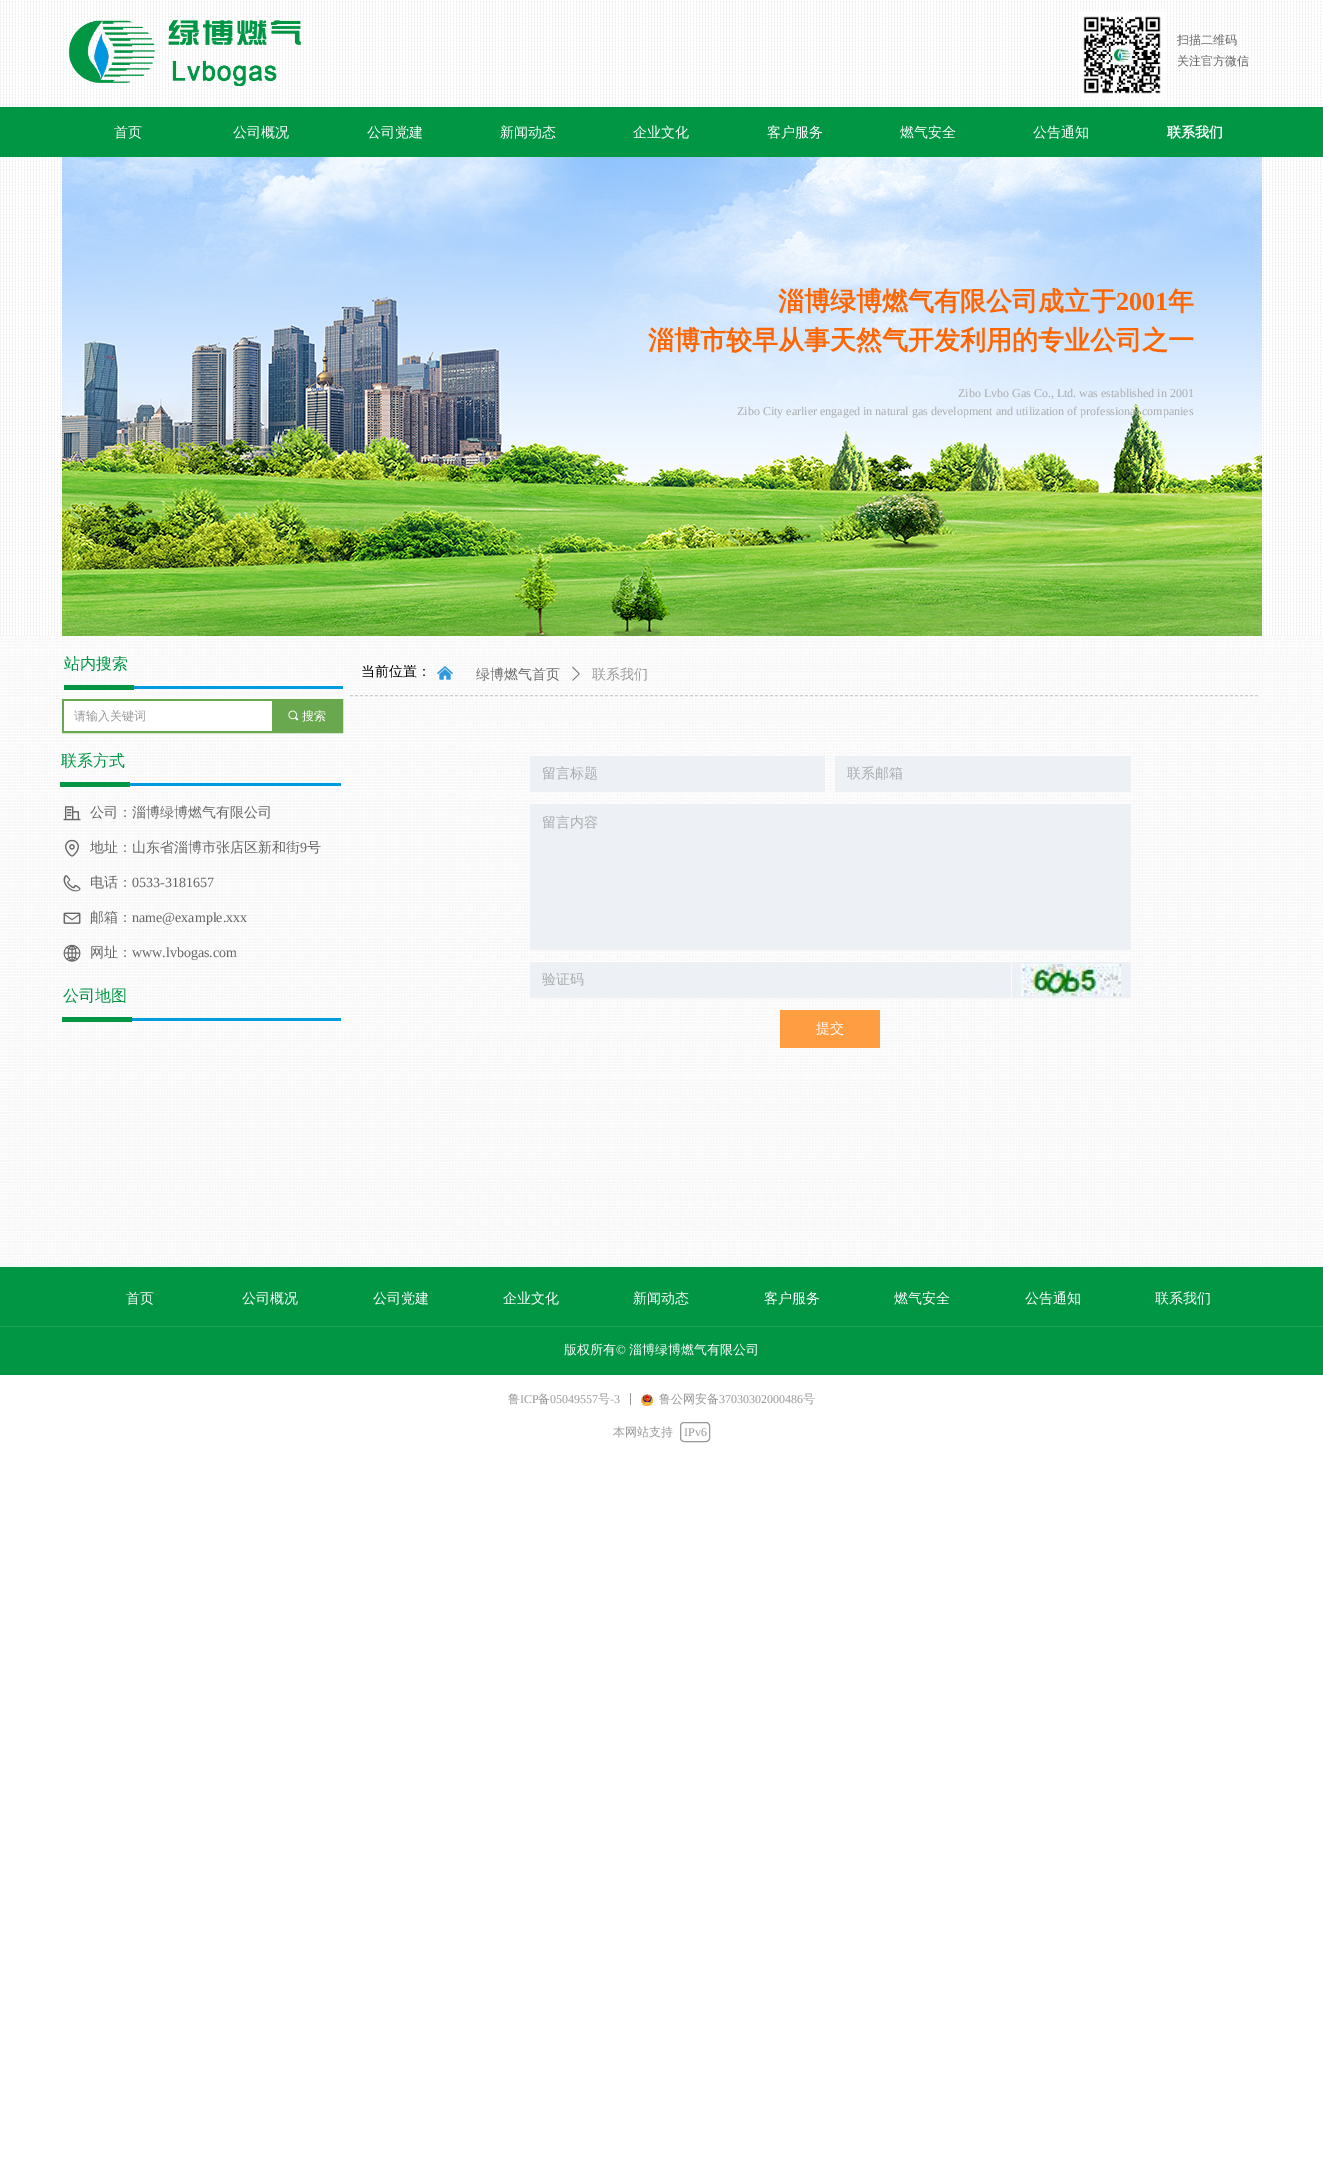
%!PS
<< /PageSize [1323 2184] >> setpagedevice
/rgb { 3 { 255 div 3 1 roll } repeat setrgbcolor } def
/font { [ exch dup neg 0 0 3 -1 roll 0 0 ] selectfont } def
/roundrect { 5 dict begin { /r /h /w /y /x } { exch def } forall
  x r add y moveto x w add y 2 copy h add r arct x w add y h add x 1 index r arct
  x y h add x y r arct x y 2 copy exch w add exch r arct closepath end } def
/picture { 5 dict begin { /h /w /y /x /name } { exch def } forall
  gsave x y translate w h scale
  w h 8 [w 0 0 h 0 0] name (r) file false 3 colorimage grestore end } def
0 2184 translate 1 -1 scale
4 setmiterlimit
255 255 255 rgb
0 0 1323 2184 rectfill
(img/1.rgb) 0 0 1323 636 picture
(img/2.rgb) 69 20 232 66 picture
(img/3.rgb) 1080 11 85 88 picture
0 150 68 rgb
0 107 1323 50 rectfill
(img/4.rgb) 62 157 1200 479 picture
(img/5.rgb) 0 636 1323 631 picture
64 685 70 5 rectfill
0 155 223 rgb
134 686 209 3 rectfill
106 168 79 rgb
2 setlinewidth
63 700 279 32 rectstroke
255 255 255 rgb
64 701 208 30 rectfill
106 168 79 rgb
272 701 69 30 rectfill
(img/6.rgb) 288 710 11 11 picture
0 150 68 rgb
60 782 70 5 rectfill
0 155 223 rgb
130 783 211 3 rectfill
(img/7.rgb) 63 806 18 15 picture
(img/8.rgb) 65 839 14 18 picture
(img/9.rgb) 63 875 18 17 picture
(img/10.rgb) 63 912 18 12 picture
(img/11.rgb) 63 944 18 18 picture
0 150 68 rgb
62 1017 70 5 rectfill
0 155 223 rgb
132 1018 209 3 rectfill
204 204 204 rgb
1 setlinewidth
[3 2] 0 setdash
350 695.5 moveto 1258 695.5 lineto stroke
(img/12.rgb) 437 666 16 14 picture
(img/13.rgb) 572 666 8 15 picture
[
  [530 756 295 36 237 241 245]
  [835 756 296 36 237 241 245]
  [530 804 601 146 237 241 245]
  [530 962 481 36 237 241 245]
  [1012 962 119 36 237 241 245]
] { aload pop rgb rectfill } forall
(img/14.rgb) 1021 964 100 32 picture
[
  [780 1010 100 38 255 157 67]
  [0 1267 1323 108 0 150 68]
  [0 1326 1323 1 28 162 89]
  [630 1393 1 12 152 152 152]
] { aload pop rgb rectfill } forall
(img/15.rgb) 641 1394 12 12 picture
[] 0 setdash
680.5 1422.5 29 19 3.5 roundrect stroke
gsave
1177 30 80 44 rectclip
/WenQuanYiZenHei-Medium 12 font
102 102 102 rgb
1177 44 moveto (扫描二维码) show
grestore
/WenQuanYiZenHei-Medium 12 font
102 102 102 rgb
1177 65 moveto (关注官方微信) show
/WenQuanYiZenHei-Medium 14 font
255 255 255 rgb
[
  [(首页) 114 137]
  [(公司概况) 233 137]
  [(公司党建) 367 137]
  [(新闻动态) 500 137]
  [(企业文化) 633 137]
  [(客户服务) 767 137]
  [(燃气安全) 900 137]
  [(公告通知) 1033 137]
] { aload pop moveto show } forall
/WenQuanYiZenHei-Bold 14 font
1167 137 moveto (联系我们) show
/WenQuanYiZenHei-Bold 26 font
255 102 0 rgb
778 310 moveto (淄博绿博燃气有限公司成立于) show
/LiberationSerif-Bold 26 font
1116 310 moveto (2001) show
/WenQuanYiZenHei-Bold 26 font
1168 310 moveto (年) show
648 349 moveto (淄博市较早从事天然气开发利用的专业公司之一) show
/LiberationSerif-Regular 12 font
170 172 174 rgb
958 397 moveto (Zibo Lvbo Gas Co., Ltd. was established in 2001) show
737 415 moveto (Zibo City earlier engaged in natural gas development and utilization of professional companies) show
gsave
64 656 157 25 rectclip
/WenQuanYiZenHei-Medium 16 font
0 150 68 rgb
64 669 moveto (站内搜索) show
grestore
/WenQuanYiZenHei-Medium 12 font
153 153 153 rgb
74 720 moveto (请输入关键词) show
255 255 255 rgb
302 720 moveto (搜索) show
/WenQuanYiZenHei-Medium 16 font
0 150 68 rgb
61 766 moveto (联系方式) show
/WenQuanYiZenHei-Medium 14 font
102 102 102 rgb
90 817 moveto (公司：淄博绿博燃气有限公司) show
90 852 moveto (地址：山东省淄博市张店区新和街) show
/LiberationSerif-Regular 14 font
300 852 moveto (9) show
/WenQuanYiZenHei-Medium 14 font
307 852 moveto (号) show
90 887 moveto (电话：) show
/LiberationSerif-Regular 14 font
132 887 moveto (0533-3181657) show
/WenQuanYiZenHei-Medium 14 font
90 922 moveto (邮箱：) show
/LiberationSerif-Regular 14 font
132 922 moveto (name@example.xxx) show
/WenQuanYiZenHei-Medium 14 font
90 957 moveto (网址：) show
/LiberationSerif-Regular 14 font
132 957 moveto (www.lvbogas.com) show
/WenQuanYiZenHei-Medium 16 font
0 150 68 rgb
63 1001 moveto (公司地图) show
gsave
361 665 72 21 rectclip
/WenQuanYiZenHei-Medium 14 font
0 0 0 rgb
361 676 moveto (当前位置：) show
grestore
/WenQuanYiZenHei-Medium 14 font
102 102 102 rgb
476 679 moveto (绿博燃气首页) show
153 153 153 rgb
592 679 moveto (联系我们) show
170 172 174 rgb
[
  [(留言标题) 542 778]
  [(联系邮箱) 847 778]
  [(留言内容) 542 827]
] { aload pop moveto show } forall
gsave
542 971 457 18 rectclip
542 984 moveto (验证码) show
grestore
255 255 255 rgb
[
  [(提交) 816 1033]
  [(首页) 126 1303]
  [(公司概况) 242 1303]
  [(公司党建) 373 1303]
  [(企业文化) 503 1303]
  [(新闻动态) 633 1303]
  [(客户服务) 764 1303]
  [(燃气安全) 894 1303]
  [(公告通知) 1025 1303]
  [(联系我们) 1155 1303]
] { aload pop moveto show } forall
/WenQuanYiZenHei-Medium 13 font
564 1354 moveto (版权所有) show
/LiberationSerif-Regular 13 font
616 1354 moveto (©) show
/WenQuanYiZenHei-Medium 13 font
629 1354 moveto (淄博绿博燃气有限公司) show
/WenQuanYiZenHei-Medium 12 font
153 153 153 rgb
508 1403 moveto (鲁) show
/LiberationSerif-Regular 12 font
520 1403 moveto (ICP) show
/WenQuanYiZenHei-Medium 12 font
538 1403 moveto (备) show
/LiberationSerif-Regular 12 font
550 1403 moveto (05049557) show
/WenQuanYiZenHei-Medium 12 font
598 1403 moveto (号) show
/LiberationSerif-Regular 12 font
610 1403 moveto (-3) show
/WenQuanYiZenHei-Medium 12 font
659 1403 moveto (鲁公网安备) show
/LiberationSerif-Regular 12 font
719 1403 moveto (37030302000486) show
/WenQuanYiZenHei-Medium 12 font
803 1403 moveto (号) show
613 1436 moveto (本网站支持) show
/LiberationSerif-Regular 12 font
684 1436 moveto (IPv6) show
showpage
